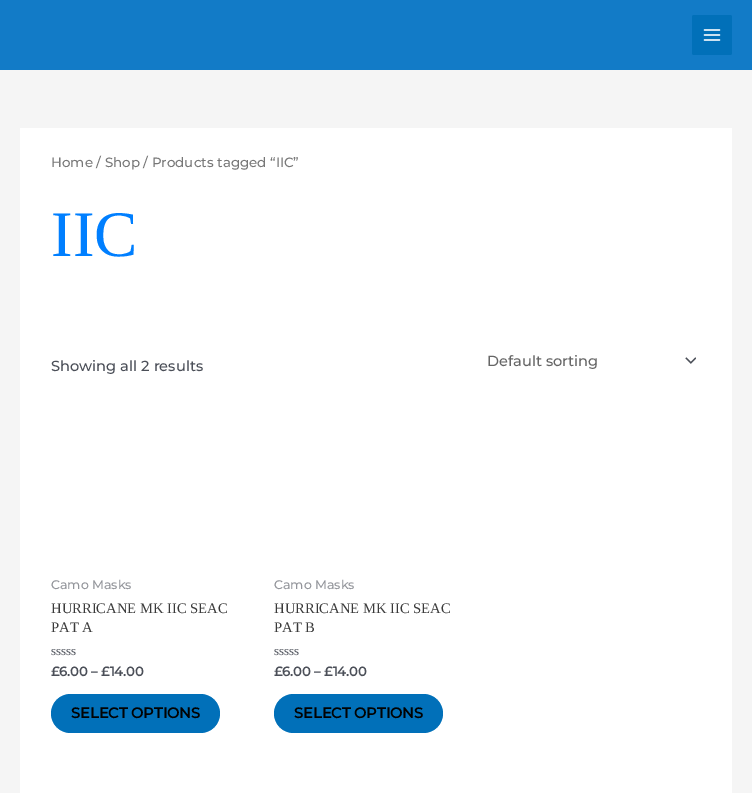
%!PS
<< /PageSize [752 793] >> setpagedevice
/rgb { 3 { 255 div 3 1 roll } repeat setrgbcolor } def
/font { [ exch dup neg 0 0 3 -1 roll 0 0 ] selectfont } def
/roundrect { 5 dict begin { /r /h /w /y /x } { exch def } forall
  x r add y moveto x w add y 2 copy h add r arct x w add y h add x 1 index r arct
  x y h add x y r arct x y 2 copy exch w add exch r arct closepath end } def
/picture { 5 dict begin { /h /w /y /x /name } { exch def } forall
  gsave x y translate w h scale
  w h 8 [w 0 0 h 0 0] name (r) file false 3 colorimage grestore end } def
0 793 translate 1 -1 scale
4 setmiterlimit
245 245 245 rgb
0 0 752 793 rectfill
18 123 199 rgb
0 0 752 70 rectfill
1 112 185 rgb
692 15 40 40 2 roundrect fill
(img/1.rgb) 703 29 18 12 picture
255 255 255 rgb
20 128 712 665 rectfill
(img/2.rgb) 685 357 11 7 picture
1 112 185 rgb
51 694 169 39 19.5 roundrect fill
274 694 169 39 19.5 roundrect fill
/Montserrat-Thin 13.4 font
119 119 119 rgb
51 167 moveto (Home / Shop / Products tagged “IIC”) show
/LiberationSerif-Regular 65 font
0 127 255 rgb
51 256 moveto (IIC) show
/Montserrat-Thin 14.6 font
75 79 88 rgb
51 371 moveto (Showing all 2 results) show
102 102 102 rgb
487 366 moveto (Default sorting) show
/Montserrat-Thin 12.5 font
147 149 155 rgb
51 589 moveto (Camo Masks) show
/LiberationSerif-Regular 14.6 font
58 58 58 rgb
51 613 moveto (HURRICANE MK IIC SEAC) show
51 632 moveto (PAT A) show
/LiberationSerif-Regular 13 font
75 79 88 rgb
51 655 moveto (sssss) show
/Montserrat-Bold 13 font
51 676 moveto (£6.00 – £14.00) show
/Montserrat-Bold 14.6 font
2 2 2 rgb
71 718 moveto (SELECT OPTIONS) show
/Montserrat-Thin 12.5 font
147 149 155 rgb
274 589 moveto (Camo Masks) show
/LiberationSerif-Regular 14.6 font
58 58 58 rgb
274 613 moveto (HURRICANE MK IIC SEAC) show
274 632 moveto (PAT B) show
/LiberationSerif-Regular 13 font
75 79 88 rgb
274 655 moveto (sssss) show
/Montserrat-Bold 13 font
274 676 moveto (£6.00 – £14.00) show
/Montserrat-Bold 14.6 font
2 2 2 rgb
294 718 moveto (SELECT OPTIONS) show
showpage
